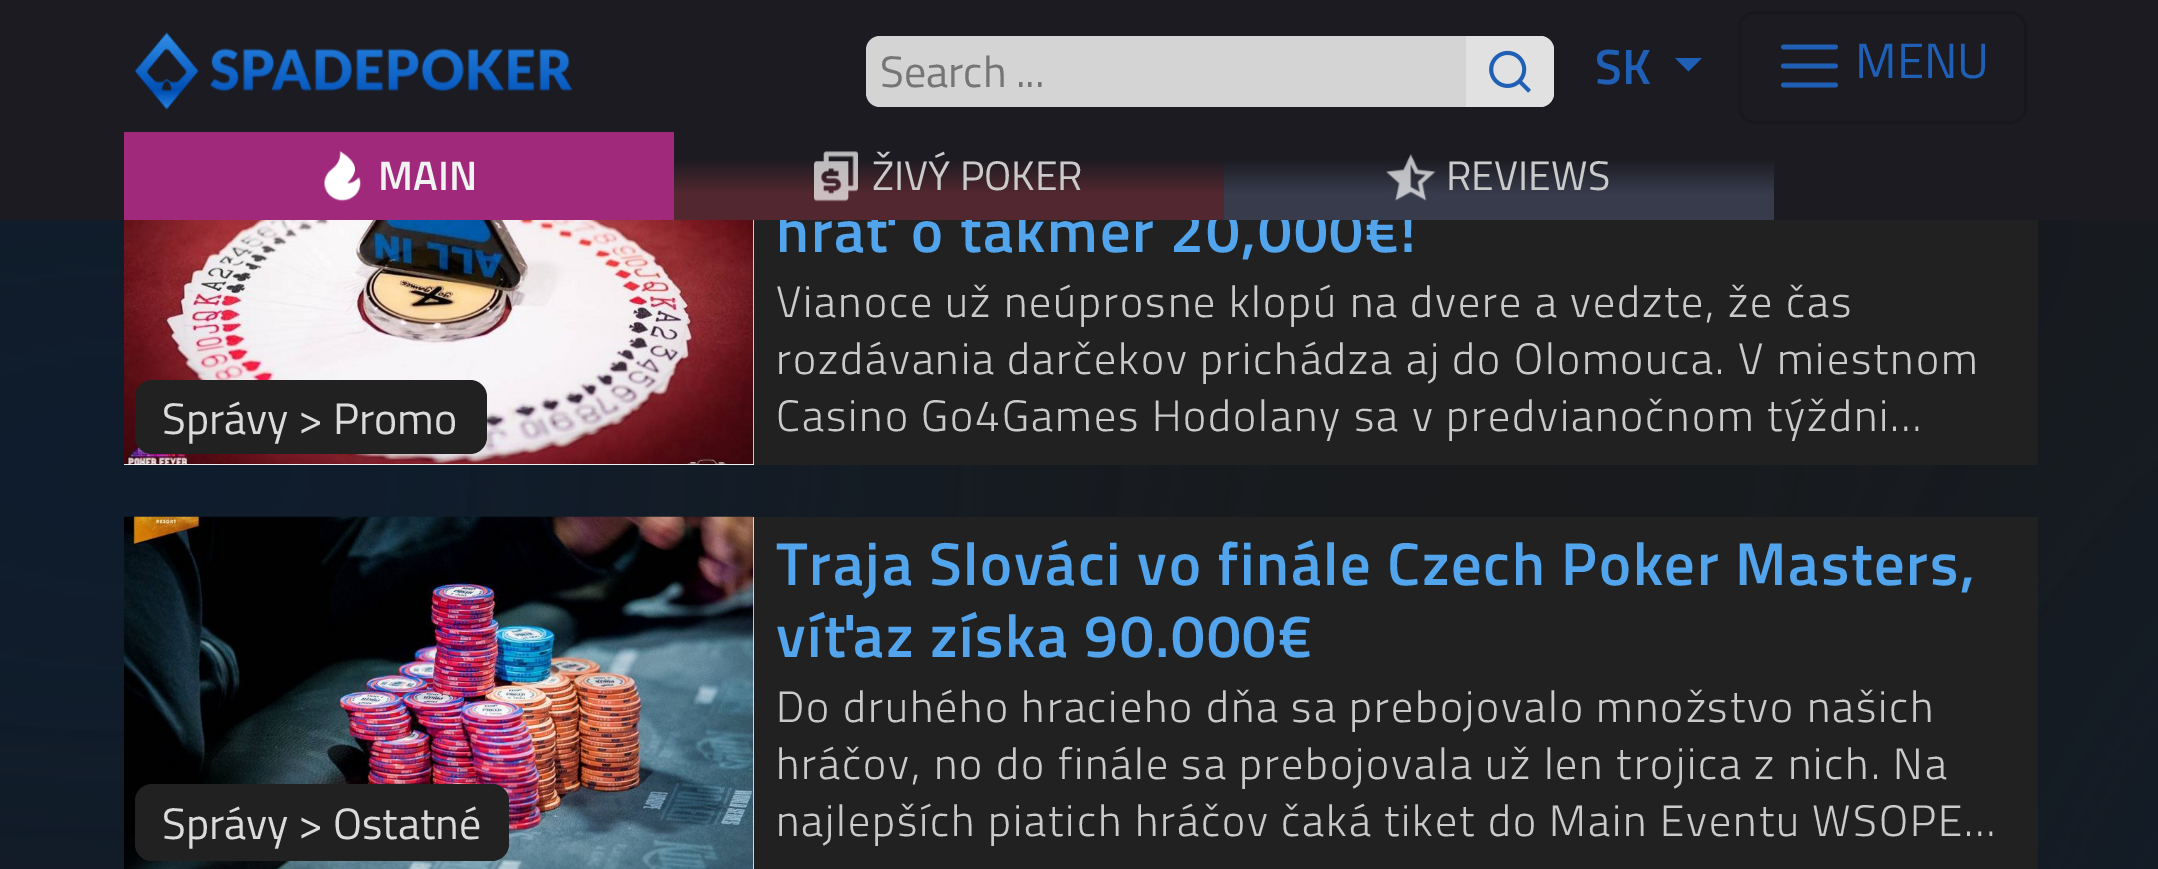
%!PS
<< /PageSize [2158 869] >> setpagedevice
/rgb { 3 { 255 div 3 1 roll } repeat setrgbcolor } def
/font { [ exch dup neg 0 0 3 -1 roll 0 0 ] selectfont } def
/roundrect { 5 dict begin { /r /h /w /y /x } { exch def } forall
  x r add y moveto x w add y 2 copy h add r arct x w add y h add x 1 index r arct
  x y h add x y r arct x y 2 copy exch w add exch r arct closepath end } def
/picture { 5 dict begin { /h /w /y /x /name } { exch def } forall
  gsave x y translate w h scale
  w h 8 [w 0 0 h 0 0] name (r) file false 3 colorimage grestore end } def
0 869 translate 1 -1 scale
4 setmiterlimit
26 26 26 rgb
0 0 2158 869 rectfill
(img/1.rgb) 0 220 2158 649 picture
33 33 33 rgb
754 220 1284 245 rectfill
255 255 255 rgb
124 220 630 245 rectfill
(img/7.rgb) 123 220 631 245 picture
33 33 33 rgb
135 380 352 74 17 roundrect fill
754 517 1284 352 rectfill
255 255 255 rgb
753 517 1 352 rectfill
(img/8.rgb) 124 516 630 353 picture
33 33 33 rgb
135 784 374 77 17 roundrect fill
/TitilliumWeb-Regular 44 font
219 219 219 rgb
162 434 moveto (Správy > Promo) show
/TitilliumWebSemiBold-SemiBold 60.5 font
82 164 236 rgb
776 252 moveto 1.65 0 (hrať o takmer 20,000€!) ashow
27 27 33 rgb
0 0 2158 220 rectfill
212 212 212 rgb
866 36 688 71 14 roundrect fill
225 225 225 rgb
1466 36 moveto 1540 36 lineto 1547.5 36 1554 42.5 1554 50 curveto 1554 93 lineto 1554 100.5 1547.5 107 1540 107 curveto 1466 107 lineto closepath fill
(img/3.rgb) 1489 50 42 43 picture
/TitilliumWeb-Regular 44 font
117 117 117 rgb
880 87 moveto (Search ...) show
gsave 1224 160 moveto 1774 160 lineto 1774 220 lineto 1224 220 lineto closepath clip newpath
<< /ShadingType 2 /ColorSpace /DeviceRGB /Coords [1499 132 1499 220] /Extend [true true] /Function << /FunctionType 3 /Domain [0 1] /Functions [<< /FunctionType 2 /Domain [0 1] /C0 [0.106 0.106 0.129] /C1 [0.106 0.106 0.129] /N 1 >> << /FunctionType 2 /Domain [0 1] /C0 [0.106 0.106 0.129] /C1 [0.22 0.231 0.298] /N 1 >> << /FunctionType 2 /Domain [0 1] /C0 [0.22 0.231 0.298] /C1 [0.22 0.231 0.298] /N 1 >>] /Bounds [0.3 0.7] /Encode [0 1 0 1 0 1] >> >> shfill grestore
(img/6.rgb) 1386 154 50 47 picture
gsave 674 160 moveto 1224 160 lineto 1224 220 lineto 674 220 lineto closepath clip newpath
<< /ShadingType 2 /ColorSpace /DeviceRGB /Coords [949 132 949 220] /Extend [true true] /Function << /FunctionType 3 /Domain [0 1] /Functions [<< /FunctionType 2 /Domain [0 1] /C0 [0.106 0.106 0.129] /C1 [0.106 0.106 0.129] /N 1 >> << /FunctionType 2 /Domain [0 1] /C0 [0.106 0.106 0.129] /C1 [0.325 0.153 0.188] /N 1 >> << /FunctionType 2 /Domain [0 1] /C0 [0.325 0.153 0.188] /C1 [0.325 0.153 0.188] /N 1 >>] /Bounds [0.3 0.7] /Encode [0 1 0 1 0 1] >> >> shfill grestore
(img/5.rgb) 814 151 44 51 picture
/TitilliumWeb-Regular 41.25 font
202 202 202 rgb
1446 190 moveto (REVIEWS) show
872 190 moveto (ŽIVÝ POKER) show
160 41 123 rgb
124 132 550 88 rectfill
/TitilliumWebSemiBold-SemiBold 41.25 font
242 242 242 rgb
378 190 moveto (MAIN) show
(img/4.rgb) 324 151 37 51 picture
32 95 182 rgb
1675 58 moveto 1702 58 lineto 1688.5 71.5 lineto closepath fill
/TitilliumWebSemiBold-SemiBold 49.5 font
1595 84 moveto (SK) show
23 23 28 rgb
3 setlinewidth
1739.5 12.5 286 110 15.5 roundrect stroke
/TitilliumWeb-Regular 49.5 font
32 95 182 rgb
1855 78 moveto (MENU) show
4.8 setlinewidth
1 setlinecap
1783.5 47 moveto 1835.5 47 lineto 1783.5 66 moveto 1835.5 66 lineto 1783.5 85 moveto 1835.5 85 lineto stroke
(img/2.rgb) 134 32 438 78 picture
/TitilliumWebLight-Light 44 font
202 202 202 rgb
776 317 moveto 1.92 0 (Vianoce už neúprosne klopú na dvere a vedzte, že čas) ashow
776 374 moveto 1.92 0 (rozdávania darčekov prichádza aj do Olomouca. V miestnom) ashow
776 431 moveto 1.92 0 (Casino Go4Games Hodolany sa v predvianočnom týždni…) ashow
/TitilliumWeb-Regular 44 font
219 219 219 rgb
162 839 moveto (Správy > Ostatné) show
/TitilliumWebSemiBold-SemiBold 60.5 font
82 164 236 rgb
776 585 moveto 1.65 0 (Traja Slováci vo finále Czech Poker Masters,) ashow
776 657 moveto 1.65 0 (víťaz získa 90.000€) ashow
/TitilliumWebLight-Light 44 font
202 202 202 rgb
776 722 moveto 1.92 0 (Do druhého hracieho dňa sa prebojovalo množstvo našich) ashow
776 779 moveto 1.92 0 (hráčov, no do finále sa prebojovala už len trojica z nich. Na) ashow
776 836 moveto 1.92 0 (najlepších piatich hráčov čaká tiket do Main Eventu WSOPE…) ashow
showpage
